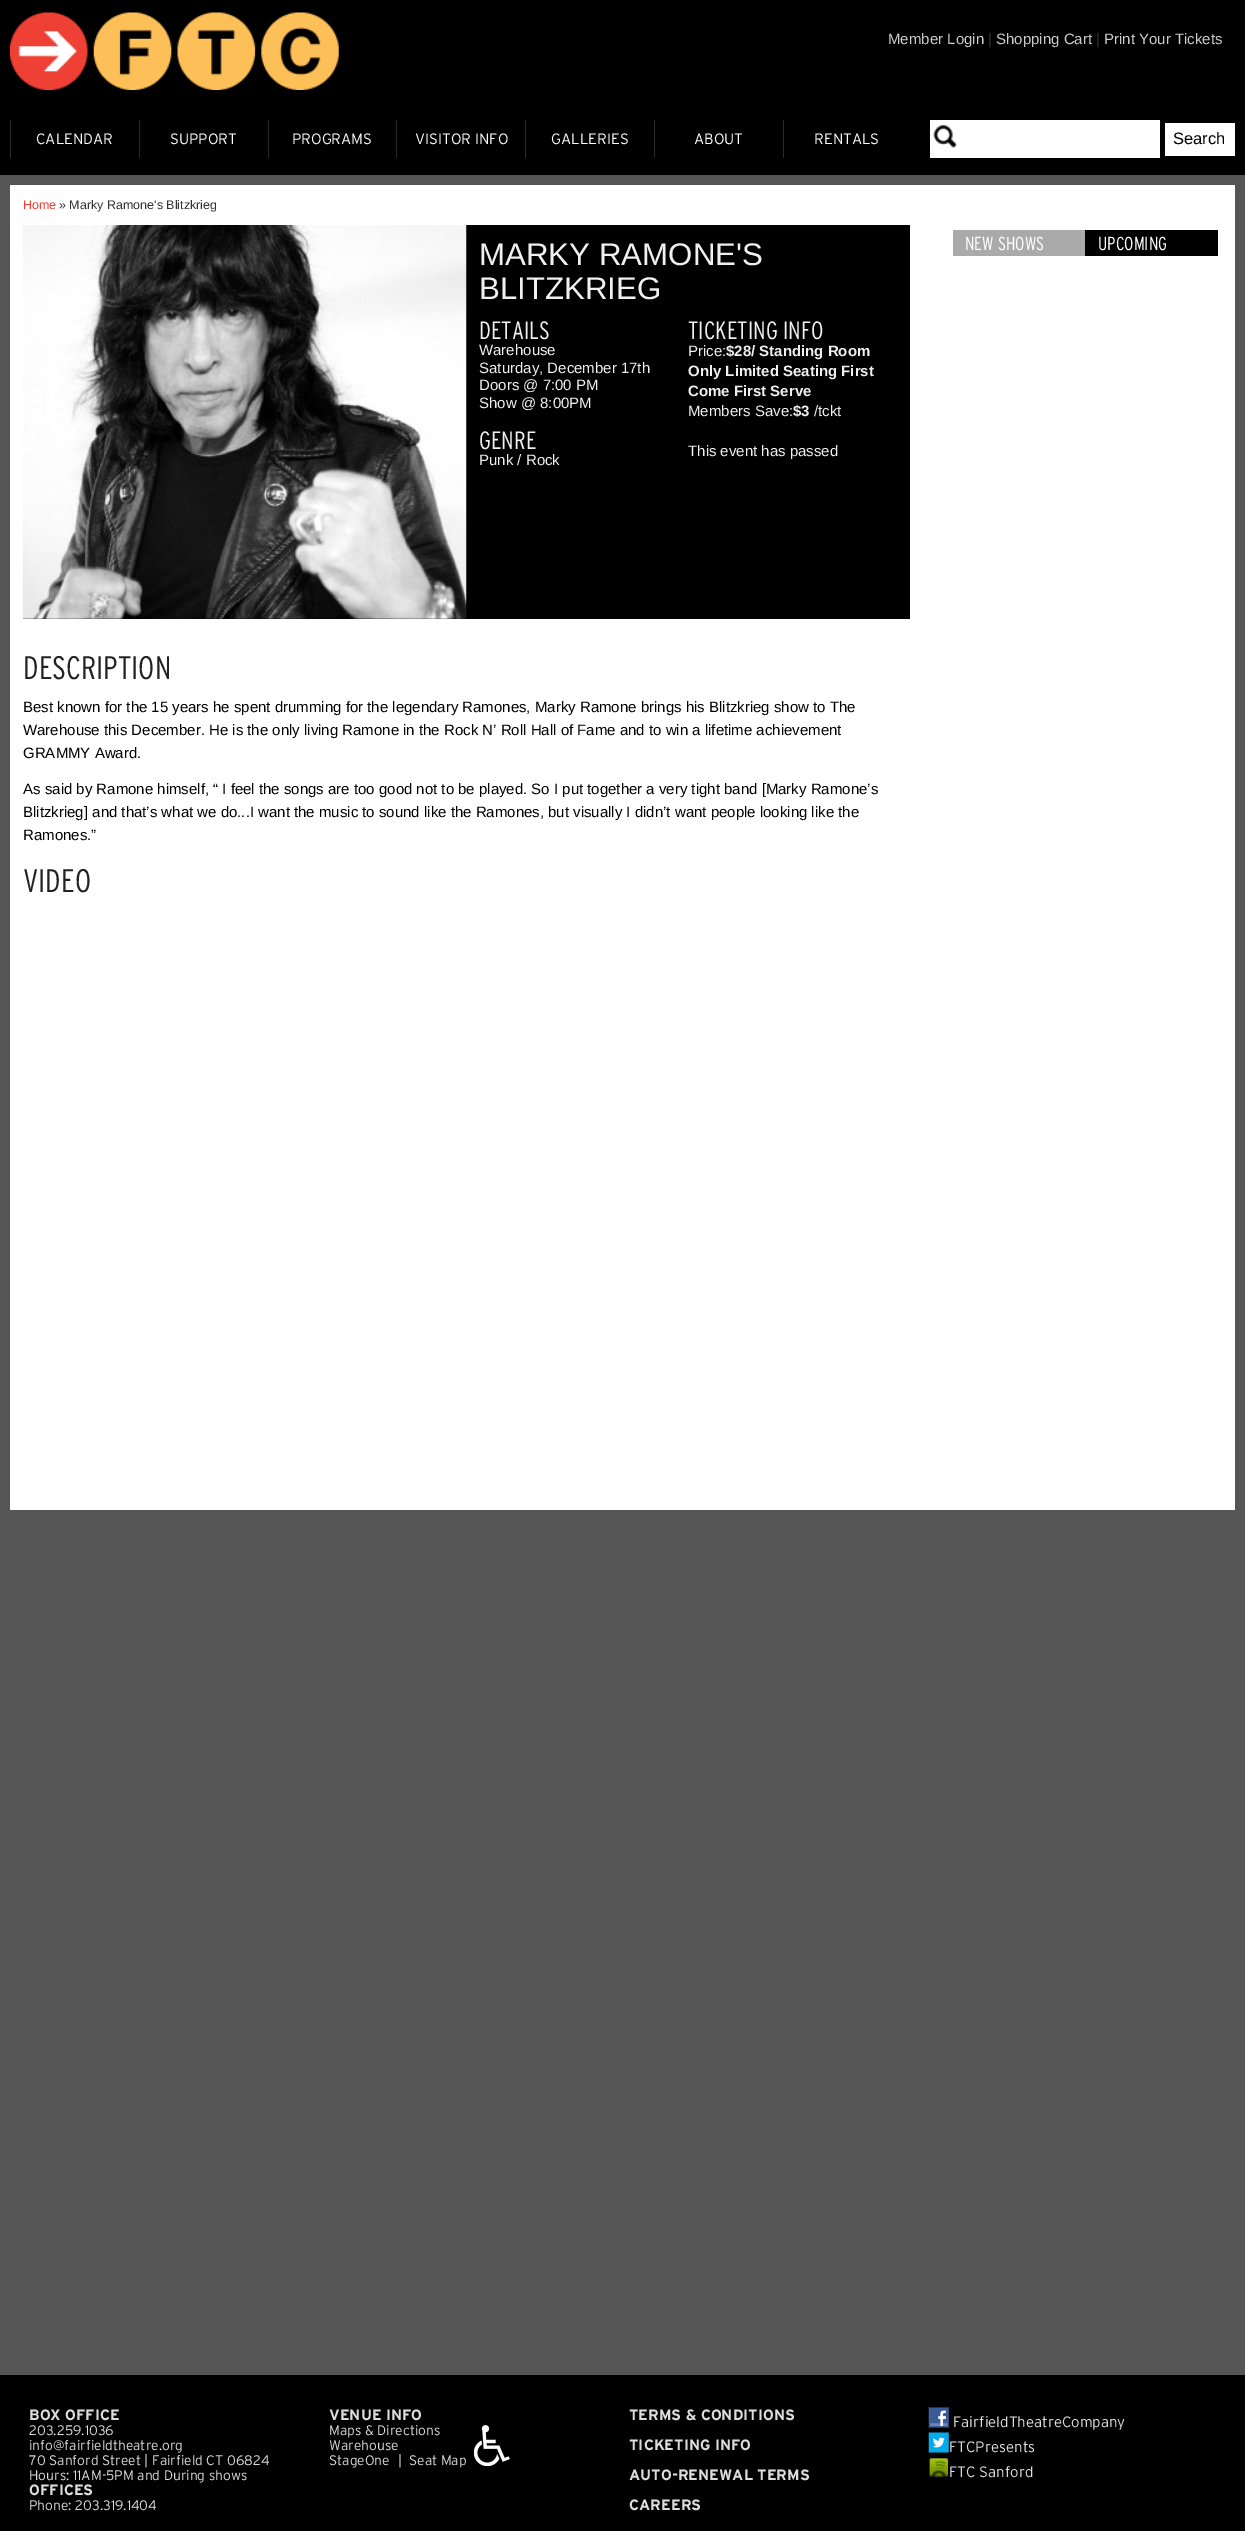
%!PS
<< /PageSize [1245 2531] >> setpagedevice
/rgb { 3 { 255 div 3 1 roll } repeat setrgbcolor } def
/font { [ exch dup neg 0 0 3 -1 roll 0 0 ] selectfont } def
/picture { 5 dict begin { /h /w /y /x /name } { exch def } forall
  gsave x y translate w h scale
  w h 8 [w 0 0 h 0 0] name (r) file false 3 colorimage grestore end } def
0 2531 translate 1 -1 scale
4 setmiterlimit
85 85 85 rgb
0 0 1245 2531 rectfill
0 0 0 rgb
0 0 1245 175 rectfill
(img/1.rgb) 10 12 329 78 picture
[
  [10 120 1 38 41 41 41]
  [139 120 1 38 41 41 41]
  [268 120 1 38 41 41 41]
  [396 120 1 38 41 41 41]
  [525 120 1 38 41 41 41]
  [654 120 1 38 41 41 41]
  [783 120 1 38 41 41 41]
  [930 120 230 38 255 255 255]
] { aload pop rgb rectfill } forall
(img/2.rgb) 933 125 24 23 picture
[
  [1165 123 70 33 255 255 255]
  [10 185 1225 1325 255 255 255]
  [23 225 887 394 0 0 0]
] { aload pop rgb rectfill } forall
(img/3.rgb) 22 225 445 394 picture
[
  [953 230 132 26 170 170 170]
  [1085 230 133 26 0 0 0]
  [0 2375 1245 156 0 0 0]
] { aload pop rgb rectfill } forall
(img/4.rgb) 474 2425 36 41 picture
(img/5.rgb) 928 2407 21 21 picture
(img/6.rgb) 928 2432 21 21 picture
(img/7.rgb) 929 2458 19 19 picture
/LiberationSans-Regular 15 font
204 204 204 rgb
888 44 moveto (Member Login) show
50 50 50 rgb
988 44 moveto (|) show
204 204 204 rgb
996 44 moveto (Shopping Cart) show
50 50 50 rgb
1096 44 moveto (|) show
204 204 204 rgb
1104 44 moveto (Print Your Tickets) show
/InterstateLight-Light 15 font
255 255 255 rgb
[
  [(CALENDAR) 36 144]
  [(SUPPORT) 170 144]
  [(PROGRAMS) 292 144]
  [(VISITOR INFO) 415 144]
  [(GALLERIES) 551 144]
  [(ABOUT) 694 144]
  [(RENTALS) 814 144]
] { aload pop moveto show } forall
/LiberationSans-Regular 16.5 font
0 0 0 rgb
1173 144 moveto (Search) show
/LiberationSans-Regular 12.5 font
239 64 53 rgb
23 209 moveto (Home) show
50 50 50 rgb
59 209 moveto (» Marky Ramone's Blitzkrieg) show
/LiberationSans-Regular 31.25 font
240 240 240 rgb
479 265 moveto (MARKY RAMONE'S) show
479 299 moveto (BLITZKRIEG) show
/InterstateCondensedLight-Light 25 font
479 339 moveto (DETAILS) show
/LiberationSans-Regular 15 font
[
  [(Warehouse) 479 355]
  [(Saturday, December 17th) 479 373]
  [(Doors @ 7:00 PM) 479 390]
  [(Show @ 8:00PM) 479 408]
] { aload pop moveto show } forall
/InterstateCondensedLight-Light 25 font
479 449 moveto (GENRE) show
/LiberationSans-Regular 15 font
479 465 moveto (Punk / Rock) show
/InterstateCondensedLight-Light 25 font
688 339 moveto (TICKETING INFO) show
/LiberationSans-Regular 15 font
688 356 moveto (Price:) show
/LiberationSans-Bold 15 font
[
  [($28/ Standing Room) 726 356]
  [(Only Limited Seating First) 688 376]
  [(Come First Serve) 688 396]
] { aload pop moveto show } forall
/LiberationSans-Regular 15 font
688 416 moveto (Members Save:) show
/LiberationSans-Bold 15 font
793 416 moveto ($3) show
/LiberationSans-Regular 15 font
814 416 moveto (/tckt) show
688 456 moveto (This event has passed) show
/InterstateCondensedLight-Light 32.5 font
34 34 34 rgb
23 679 moveto (DESCRIPTION) show
/LiberationSans-Regular 15 font
0 0 0 rgb
[
  [(Best known for the 15 years he spent drumming for the legendary Ramones, Marky Ramone brings his Blitzkrieg show to The) 23 712]
  [(Warehouse this December. He is the only living Ramone in the Rock N’ Roll Hall of Fame and to win a lifetime achievement) 23 735]
  [(GRAMMY Award.) 23 758]
  [(As said by Ramone himself, “ I feel the songs are too good not to be played. So I put together a very tight band [Marky Ramone’s) 23 794]
  [(Blitzkrieg] and that’s what we do...I want the music to sound like the Ramones, but visually I didn’t want people looking like the) 23 817]
  [(Ramones.”) 23 840]
] { aload pop moveto show } forall
/InterstateCondensedLight-Light 32.5 font
34 34 34 rgb
23 892 moveto (VIDEO) show
/InterstateCondensedLight-Light 18.75 font
255 255 255 rgb
965 250 moveto (NEW SHOWS) show
1098 250 moveto (UPCOMING) show
/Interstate-Bold 15 font
221 221 221 rgb
29 2420 moveto (BOX OFFICE) show
/InterstateLight-Light 13.75 font
[
  [(203.259.1036) 29 2435]
  [(info@fairfieldtheatre.org) 29 2450]
  [(70 Sanford Street | Fairfield CT 06824) 29 2465]
  [(Hours: 11AM-5PM and During shows) 29 2480]
] { aload pop moveto show } forall
/Interstate-Bold 15 font
29 2495 moveto (OFFICES) show
/InterstateLight-Light 13.75 font
29 2510 moveto (Phone: 203.319.1404) show
/Interstate-Bold 15 font
329 2420 moveto (VENUE INFO) show
/InterstateLight-Light 13.75 font
[
  [(Maps & Directions) 329 2435]
  [(Warehouse) 329 2450]
  [(StageOne) 329 2465]
  [(|) 398 2465]
  [(Seat Map) 409 2465]
] { aload pop moveto show } forall
/Interstate-Bold 15 font
[
  [(TERMS & CONDITIONS) 629 2420]
  [(TICKETING INFO) 629 2450]
  [(AUTO-RENEWAL TERMS) 629 2480]
  [(CAREERS) 629 2510]
] { aload pop moveto show } forall
/InterstateLight-Light 15 font
[
  [(FairfieldTheatreCompany) 953 2427]
  [(FTCPresents) 949 2452]
  [(FTC Sanford) 949 2477]
] { aload pop moveto show } forall
showpage
